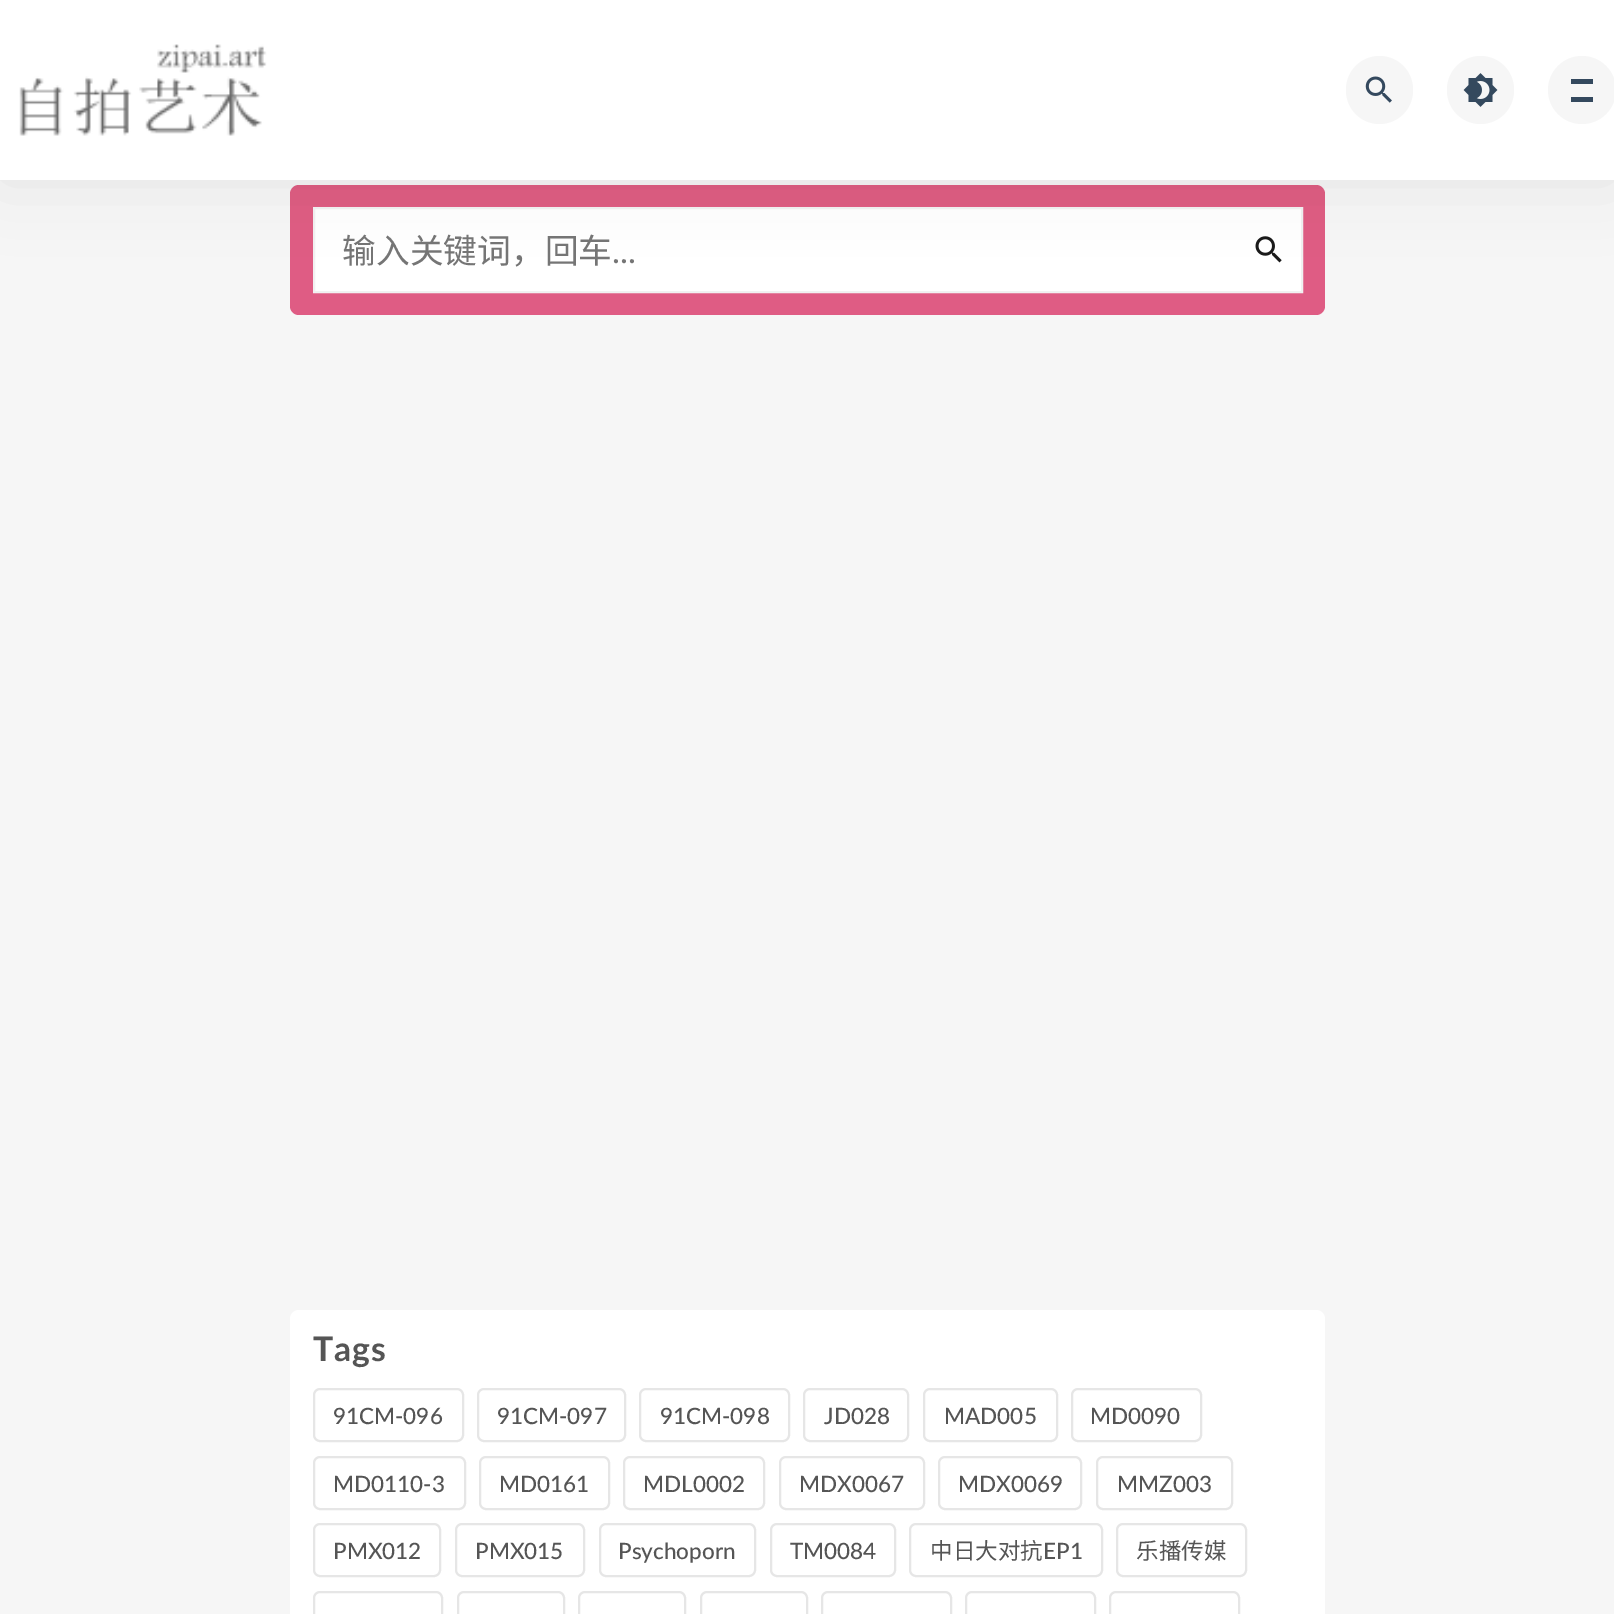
%!PS
<< /PageSize [1614 1614] /PageUsesTransparency true >> setpagedevice
/rgb { 3 { 255 div 3 1 roll } repeat setrgbcolor } def
/font { [ exch dup neg 0 0 3 -1 roll 0 0 ] selectfont } def
/alpha { dup .setfillconstantalpha .setstrokeconstantalpha } def
/circle { newpath 0 360 arc closepath } def
/roundrect { 5 dict begin { /r /h /w /y /x } { exch def } forall
  x r add y moveto x w add y 2 copy h add r arct x w add y h add x 1 index r arct
  x y h add x y r arct x y 2 copy exch w add exch r arct closepath end } def
/shadow { 12 dict begin { /a /b /q /h /w /y /x } { exch def } forall gsave /was 0 def
  9 -2 -9 { dup b mul 4 div /e exch def 1 sub .425 mul 2.718 exch exp 1 add a .99 .min exch div /now exch def
    1 1 now sub 1 was sub div sub alpha /was now def
    w h .min e 2 mul add 0 gt { x e sub y e sub w e 2 mul add h e 2 mul add
      q e add b .6 mul add w h .min 2 div e add .min 0 .max roundrect fill } if } for grestore end } def
/picture { 5 dict begin { /h /w /y /x /name } { exch def } forall
  gsave x y translate w h scale
  w h 8 [w 0 0 h 0 0] name (r) file false 3 colorimage grestore end } def
0 .pushpdf14devicefilter
0 1614 translate 1 -1 scale
4 setmiterlimit
246 246 246 rgb
0 0 1614 1614 rectfill
223 92 132 rgb
290 185 1035 130 9 roundrect fill
255 255 255 rgb
314 208 moveto 1302 208 lineto 1302 292 lineto 314 292 lineto closepath gsave fill grestore
241 241 241 rgb
2 setlinewidth
stroke
(img/4.rgb) 1255 236 27 27 picture
0 0 0 rgb
0 0 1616 180 0 34 0.07 shadow
255 255 255 rgb
0 0 1614 180 rectfill
(img/1.rgb) 19 44 248 92 picture
246 246 246 rgb
1346 56 67 68 33.5 roundrect fill
(img/2.rgb) 1365 76 27 27 picture
1447 56 67 68 33.5 roundrect fill
(img/3.rgb) 1463 73 35 34 picture
1582 90 34 circle fill
52 73 94 rgb
1571 79 22 5 rectfill
1571 97 22 5 rectfill
255 255 255 rgb
290 1310 1035 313 9 roundrect fill
230 230 230 rgb
314 1389 149 52 6 roundrect stroke
478 1389 147 52 6 roundrect stroke
640 1389 149 52 6 roundrect stroke
804 1389 104 52 6 roundrect stroke
924 1389 133 52 6 roundrect stroke
1072 1389 129 52 6 roundrect stroke
314 1457 151 52 6 roundrect stroke
480 1457 129 52 6 roundrect stroke
624 1457 140 52 6 roundrect stroke
780 1457 144 52 6 roundrect stroke
939 1457 142 52 6 roundrect stroke
1097 1457 135 52 6 roundrect stroke
314 1524 126 52 6 roundrect stroke
456 1524 128 52 6 roundrect stroke
600 1524 155 52 6 roundrect stroke
771 1524 124 52 6 roundrect stroke
910 1524 192 52 6 roundrect stroke
1117 1524 129 52 6 roundrect stroke
314 1592 128 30 6 roundrect stroke
458 1592 106 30 6 roundrect stroke
579 1592 106 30 6 roundrect stroke
701 1592 106 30 6 roundrect stroke
822 1592 129 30 6 roundrect stroke
966 1592 129 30 6 roundrect stroke
1110 1592 129 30 6 roundrect stroke
/NotoSansCJKSC-Regular 33.75 font
117 117 117 rgb
342 263 moveto (输入关键词，回车) show
/Lato-Regular 33.75 font
612 263 moveto (...) show
/Lato-Bold 33.75 font
85 85 85 rgb
313 1361 moveto 1 0 (Tags) ashow
/Lato-Medium 22.5 font
[
  [(91CM-096) 333 1424]
  [(91CM-097) 497 1424]
  [(91CM-098) 660 1424]
  [(JD028) 824 1424]
  [(MAD005) 944 1424]
  [(MD0090) 1090 1424]
  [(MD0110-3) 333 1492]
  [(MD0161) 499 1492]
  [(MDL0002) 643 1492]
  [(MDX0067) 799 1492]
  [(MDX0069) 958 1492]
  [(MMZ003) 1117 1492]
  [(PMX012) 333 1559]
  [(PMX015) 475 1559]
  [(Psychoporn) 618 1559]
  [(TM0084) 790 1559]
] { aload pop moveto show } forall
/NotoSansCJKSC-Regular 22.5 font
930 1559 moveto (中日大对抗) show
/Lato-Medium 22.5 font
1043 1559 moveto (EP1) show
/NotoSansCJKSC-Regular 22.5 font
1136 1559 moveto (乐播传媒) show
.poppdf14devicefilter showpage
